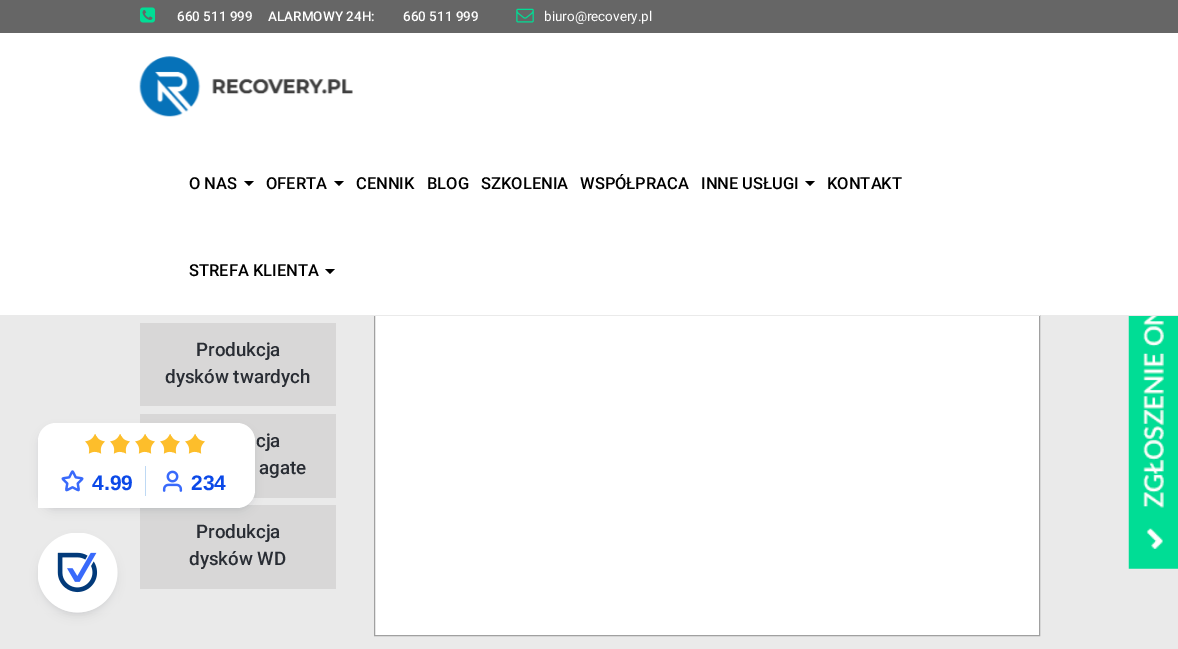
%!PS
<< /PageSize [1178 649] /PageUsesTransparency true >> setpagedevice
/rgb { 3 { 255 div 3 1 roll } repeat setrgbcolor } def
/font { [ exch dup neg 0 0 3 -1 roll 0 0 ] selectfont } def
/alpha { dup .setfillconstantalpha .setstrokeconstantalpha } def
/roundrect { 5 dict begin { /r /h /w /y /x } { exch def } forall
  x r add y moveto x w add y 2 copy h add r arct x w add y h add x 1 index r arct
  x y h add x y r arct x y 2 copy exch w add exch r arct closepath end } def
/shadow { 12 dict begin { /a /b /q /h /w /y /x } { exch def } forall gsave /was 0 def
  9 -2 -9 { dup b mul 4 div /e exch def 1 sub .425 mul 2.718 exch exp 1 add a .99 .min exch div /now exch def
    1 1 now sub 1 was sub div sub alpha /was now def
    w h .min e 2 mul add 0 gt { x e sub y e sub w e 2 mul add h e 2 mul add
      q e add b .6 mul add w h .min 2 div e add .min 0 .max roundrect fill } if } for grestore end } def
/picture { 5 dict begin { /h /w /y /x /name } { exch def } forall
  gsave x y translate w h scale
  w h 8 [w 0 0 h 0 0] name (r) file false 3 colorimage grestore end } def
0 .pushpdf14devicefilter
0 649 translate 1 -1 scale
4 setmiterlimit
234 234 234 rgb
0 0 1178 649 rectfill
102 102 102 rgb
0 0 1178 33 rectfill
(img/1.rgb) 140 7 16 16 picture
(img/2.rgb) 516 8 18 15 picture
255 255 255 rgb
375 316 664 319 rectfill
160 160 160 rgb
374.5 224.5 665 411 rectstroke
255 255 255 rgb
0 33 1178 282 rectfill
234 234 234 rgb
374 315 666 1 rectfill
(img/3.rgb) 139 56 214 61 picture
0 0 0 rgb
244 181 moveto 254 181 lineto 249 186 lineto closepath fill
334 181 moveto 344 181 lineto 339 186 lineto closepath fill
805 181 moveto 815 181 lineto 810 186 lineto closepath fill
325 269 moveto 335 269 lineto 330 274 lineto closepath fill
216 215 215 rgb
140 414 196 84 rectfill
140 505 196 84 rectfill
16 24 40 rgb
40 428 213 80 15 2.5 0.06 shadow
40 430 213 80 15 5 0.1 shadow
255 255 255 rgb
56 423 moveto 237 423 lineto 247 423 255 431 255 441 curveto 255 490 lineto 255 500 247 508 237 508 curveto 38 508 lineto 38 441 lineto 38 431 46 423 56 423 curveto closepath fill
(img/4.rgb) 85 434 13 20 picture
(img/5.rgb) 95 434 10 20 picture
(img/4.rgb) 110 434 13 20 picture
(img/5.rgb) 120 434 10 20 picture
(img/4.rgb) 135 434 13 20 picture
(img/5.rgb) 145 434 10 20 picture
(img/4.rgb) 160 434 13 20 picture
(img/5.rgb) 170 434 10 20 picture
(img/4.rgb) 185 434 13 20 picture
(img/5.rgb) 195 434 10 20 picture
(img/6.rgb) 61 470 23 22 picture
190 217 244 rgb
145 466 1 30 rectfill
(img/7.rgb) 162 470 21 22 picture
16 24 40 rgb
40 540 75 75 37.5 5 0.1 shadow
40 538 75 75 37.5 2.5 0.06 shadow
(img/8.rgb) 38 533 80 80 picture
216 215 215 rgb
140 323 196 83 rectfill
(img/9.rgb) 1128 316 50 253 picture
/Roboto-Medium 13.5 font
255 255 255 rgb
[
  [(660 511 999) 177 21]
  [(ALARMOWY 24H:) 268 21]
  [(660 511 999) 403 21]
] { aload pop moveto show } forall
/Roboto-Regular 13.5 font
544 21 moveto (biuro@recovery.pl) show
/Roboto-Medium 16.5 font
0 0 0 rgb
[
  [(O NAS) 189 189]
  [(OFERTA) 266 189]
  [(CENNIK) 356 189]
  [(BLOG) 427 189]
  [(SZKOLENIA) 481 189]
  [(WSPÓŁPRACA) 580 189]
  [(INNE USŁUGI) 701 189]
  [(KONTAKT) 827 189]
  [(STREFA KLIENTA) 189 276]
] { aload pop moveto show } forall
/LiberationSans-Bold 21 font
11 73 232 rgb
92 490 moveto (4.99) show
191 490 moveto (234) show
/Roboto-Medium 18.75 font
41 45 52 rgb
[
  [(Produkcja) 196 356]
  [(dysków twardych) 165 383]
  [(cja) 256 447]
  [(agate) 259 474]
  [(Produkcja) 196 538]
  [(dysków WD) 189 565]
] { aload pop moveto show } forall
.poppdf14devicefilter showpage
